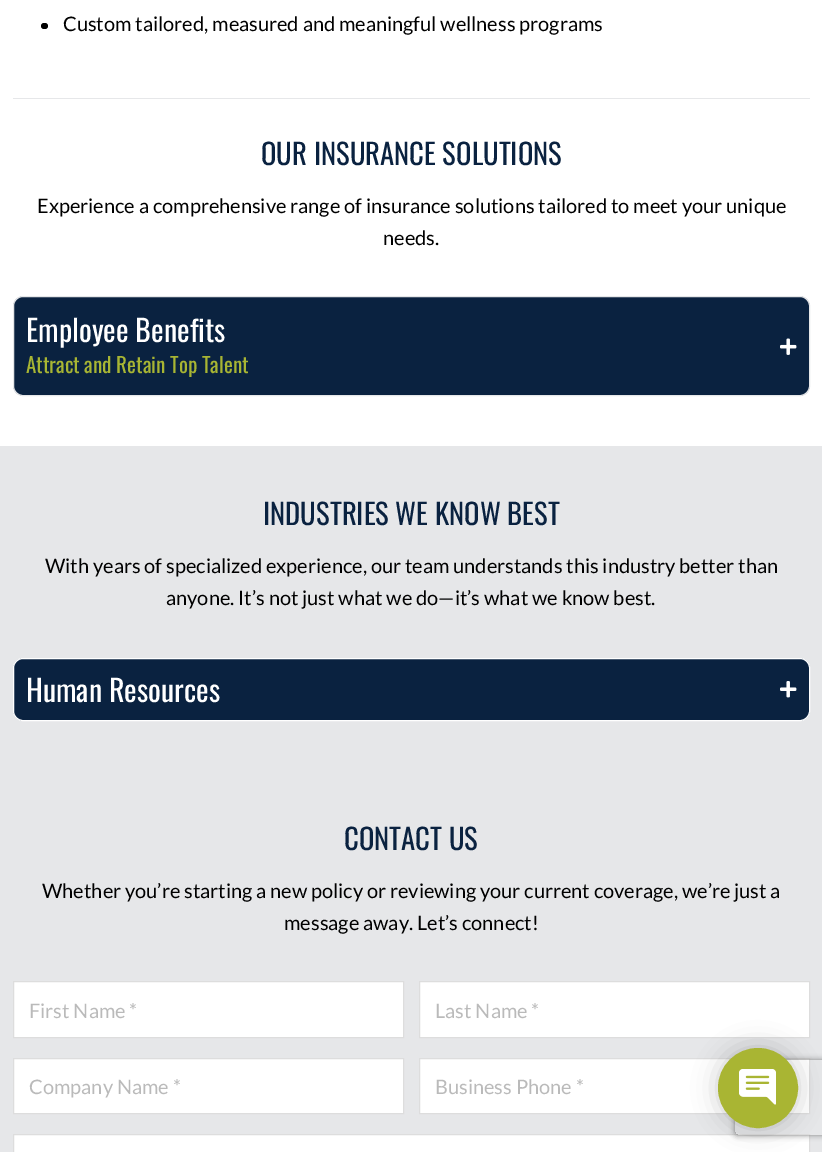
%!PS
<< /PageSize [822 1152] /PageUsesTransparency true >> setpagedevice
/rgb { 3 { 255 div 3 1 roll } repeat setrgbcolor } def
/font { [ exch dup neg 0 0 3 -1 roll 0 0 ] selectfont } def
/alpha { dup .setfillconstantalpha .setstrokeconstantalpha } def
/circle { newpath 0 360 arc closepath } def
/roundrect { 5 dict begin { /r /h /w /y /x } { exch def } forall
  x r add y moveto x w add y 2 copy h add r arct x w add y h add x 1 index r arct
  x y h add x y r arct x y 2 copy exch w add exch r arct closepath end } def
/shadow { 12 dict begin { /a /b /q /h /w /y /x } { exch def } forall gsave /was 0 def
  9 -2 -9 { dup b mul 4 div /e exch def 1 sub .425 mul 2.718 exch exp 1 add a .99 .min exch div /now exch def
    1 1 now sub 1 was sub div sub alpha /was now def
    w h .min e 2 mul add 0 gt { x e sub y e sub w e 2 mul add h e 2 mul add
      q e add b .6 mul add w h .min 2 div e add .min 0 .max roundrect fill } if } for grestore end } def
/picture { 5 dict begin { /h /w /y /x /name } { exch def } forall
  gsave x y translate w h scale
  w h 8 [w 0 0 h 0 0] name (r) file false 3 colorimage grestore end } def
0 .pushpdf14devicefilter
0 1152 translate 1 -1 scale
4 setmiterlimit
255 255 255 rgb
0 0 822 1152 rectfill
0 0 0 rgb
41 23 7 6 3 roundrect fill
230 231 233 rgb
13 98 797 1 rectfill
10 34 64 rgb
13.5 296.5 796 99 9.5 roundrect gsave fill grestore
230 231 233 rgb
stroke
(img/1.rgb) 780 338 17 17 picture
0 446 822 706 rectfill
10 34 64 rgb
13.5 658.5 796 62 9.5 roundrect gsave fill grestore
255 255 255 rgb
stroke
(img/2.rgb) 780 681 17 17 picture
13.5 981.5 moveto 403.5 981.5 lineto 403.5 1037.5 lineto 13.5 1037.5 lineto closepath gsave fill grestore
221 221 221 rgb
stroke
255 255 255 rgb
419.5 981.5 moveto 809.5 981.5 lineto 809.5 1037.5 lineto 419.5 1037.5 lineto closepath gsave fill grestore
221 221 221 rgb
stroke
255 255 255 rgb
13.5 1058.5 moveto 403.5 1058.5 lineto 403.5 1113.5 lineto 13.5 1113.5 lineto closepath gsave fill grestore
221 221 221 rgb
stroke
255 255 255 rgb
419.5 1058.5 moveto 809.5 1058.5 lineto 809.5 1113.5 lineto 419.5 1113.5 lineto closepath gsave fill grestore
221 221 221 rgb
stroke
255 255 255 rgb
13.5 1134.5 moveto 809.5 1134.5 lineto 809.5 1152.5 lineto 13.5 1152.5 lineto closepath gsave fill grestore
221 221 221 rgb
stroke
gsave
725 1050 moveto 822 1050 lineto 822 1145 lineto 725 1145 lineto closepath 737.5 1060 moveto 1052.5 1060 lineto 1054 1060 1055 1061 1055 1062.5 curveto 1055 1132.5 lineto 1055 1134 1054 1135 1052.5 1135 curveto 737.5 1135 lineto 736 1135 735 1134 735 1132.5 curveto 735 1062.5 lineto 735 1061 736 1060 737.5 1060 curveto closepath eoclip newpath
128 128 128 rgb
735 1060 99 75 2.5 3 1 shadow
grestore
0 0 0 rgb
718 1048 80 80 40 12.5 0.2 shadow
169 181 51 rgb
758 1088 38.5 circle gsave fill grestore
3 setlinewidth
stroke
(img/3.rgb) 739 1069 37 36 picture
/Lato-Regular 20 font
0 0 0 rgb
63 31 moveto (Custom tailored, measured and meaningful wellness programs) show
/Oswald-Regular 28.75 font
10 34 64 rgb
261 165 moveto (OUR INSURANCE SOLUTIONS) show
/Lato-Regular 20 font
0 0 0 rgb
37 213 moveto (Experience a comprehensive range of insurance solutions tailored to meet your unique) show
383 245 moveto (needs.) show
/Oswald-Regular 30 font
255 255 255 rgb
26 342 moveto (Employee Benefits) show
/Oswald-Regular 21 font
168 181 51 rgb
26 373 moveto (Attract and Retain Top Talent) show
/Oswald-Regular 28.75 font
10 34 64 rgb
263 525 moveto (INDUSTRIES WE KNOW BEST) show
/Lato-Regular 20 font
0 0 0 rgb
45 573 moveto (With years of specialized experience, our team understands this industry better than) show
166 605 moveto (anyone. It’s not just what we do—it’s what we know best.) show
/Oswald-Regular 30 font
255 255 255 rgb
26 702 moveto (Human Resources) show
/Oswald-Regular 28.75 font
10 34 64 rgb
344 850 moveto (CONTACT US) show
/Lato-Regular 20 font
0 0 0 rgb
42 898 moveto (Whether you’re starting a new policy or reviewing your current coverage, we’re just a) show
284 930 moveto (message away. Let’s connect!) show
186 186 186 rgb
[
  [(First Name *) 29 1018]
  [(Last Name *) 435 1018]
  [(Company Name *) 29 1094]
  [(Business Phone *) 435 1094]
] { aload pop moveto show } forall
.poppdf14devicefilter showpage
